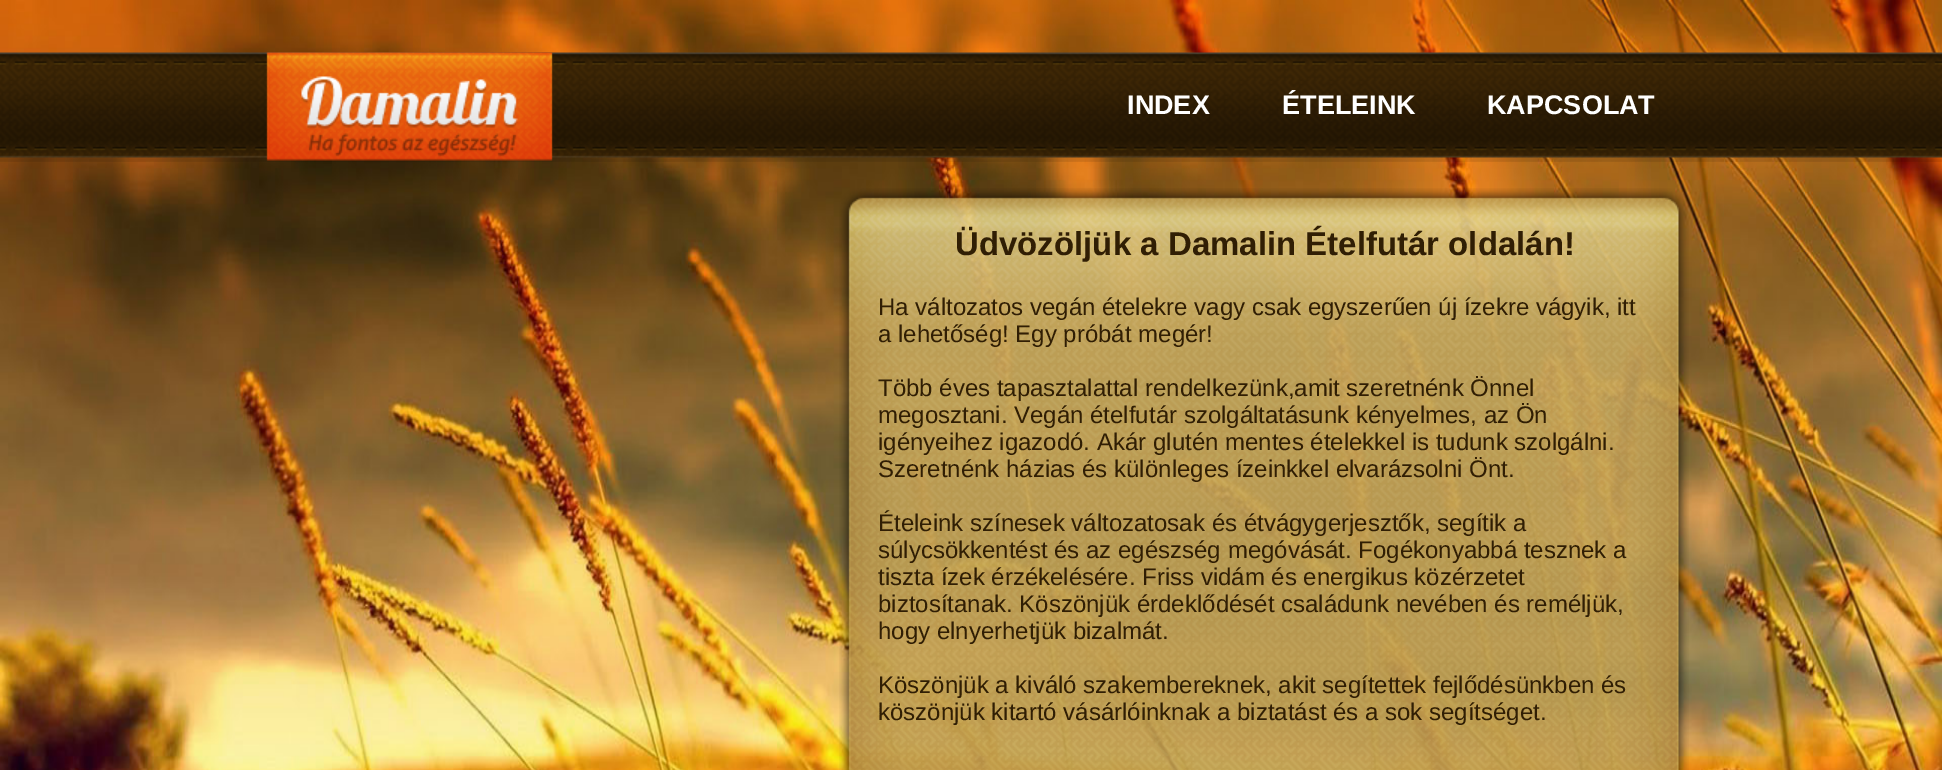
%!PS
<< /PageSize [1942 770] >> setpagedevice
/rgb { 3 { 255 div 3 1 roll } repeat setrgbcolor } def
/font { [ exch dup neg 0 0 3 -1 roll 0 0 ] selectfont } def
/picture { 5 dict begin { /h /w /y /x /name } { exch def } forall
  gsave x y translate w h scale
  w h 8 [w 0 0 h 0 0] name (r) file false 3 colorimage grestore end } def
0 770 translate 1 -1 scale
4 setmiterlimit
255 255 255 rgb
0 0 1942 770 rectfill
(img/1.rgb) 0 0 1942 770 picture
(img/2.rgb) 0 52 1942 110 picture
(img/3.rgb) 266 52 287 109 picture
(img/4.rgb) 839 188 850 582 picture
/LiberationSans-Bold 27 font
[
  [(INDEX) 1127 114]
  [(ÉTELEINK) 1282 114]
  [(KAPCSOLAT) 1487 114]
] { aload pop moveto show } forall
/LiberationSans-Bold 33 font
48 30 4 rgb
955 255 moveto (Üdvözöljük a Damalin Ételfutár oldalán!) show
/LiberationSans-Regular 24 font
[
  [(Ha változatos vegán ételekre vagy csak egyszerűen új ízekre vágyik, itt) 878 315]
  [(a lehetőség! Egy próbát megér!) 878 342]
  [(Több éves tapasztalattal rendelkezünk,amit szeretnénk Önnel) 878 396]
  [(megosztani. Vegán ételfutár szolgáltatásunk kényelmes, az Ön) 878 423]
  [(igényeihez igazodó. Akár glutén mentes ételekkel is tudunk szolgálni.) 878 450]
  [(Szeretnénk házias és különleges ízeinkkel elvarázsolni Önt.) 878 477]
  [(Ételeink színesek változatosak és étvágygerjesztők, segítik a) 878 531]
  [(súlycsökkentést és az egészség megóvását. Fogékonyabbá tesznek a) 878 558]
  [(tiszta ízek érzékelésére. Friss vidám és energikus közérzetet) 878 585]
  [(biztosítanak. Köszönjük érdeklődését családunk nevében és reméljük,) 878 612]
  [(hogy elnyerhetjük bizalmát.) 878 639]
  [(Köszönjük a kiváló szakembereknek, akit segítettek fejlődésünkben és) 878 693]
  [(köszönjük kitartó vásárlóinknak a biztatást és a sok segítséget.) 878 720]
] { aload pop moveto show } forall
showpage
